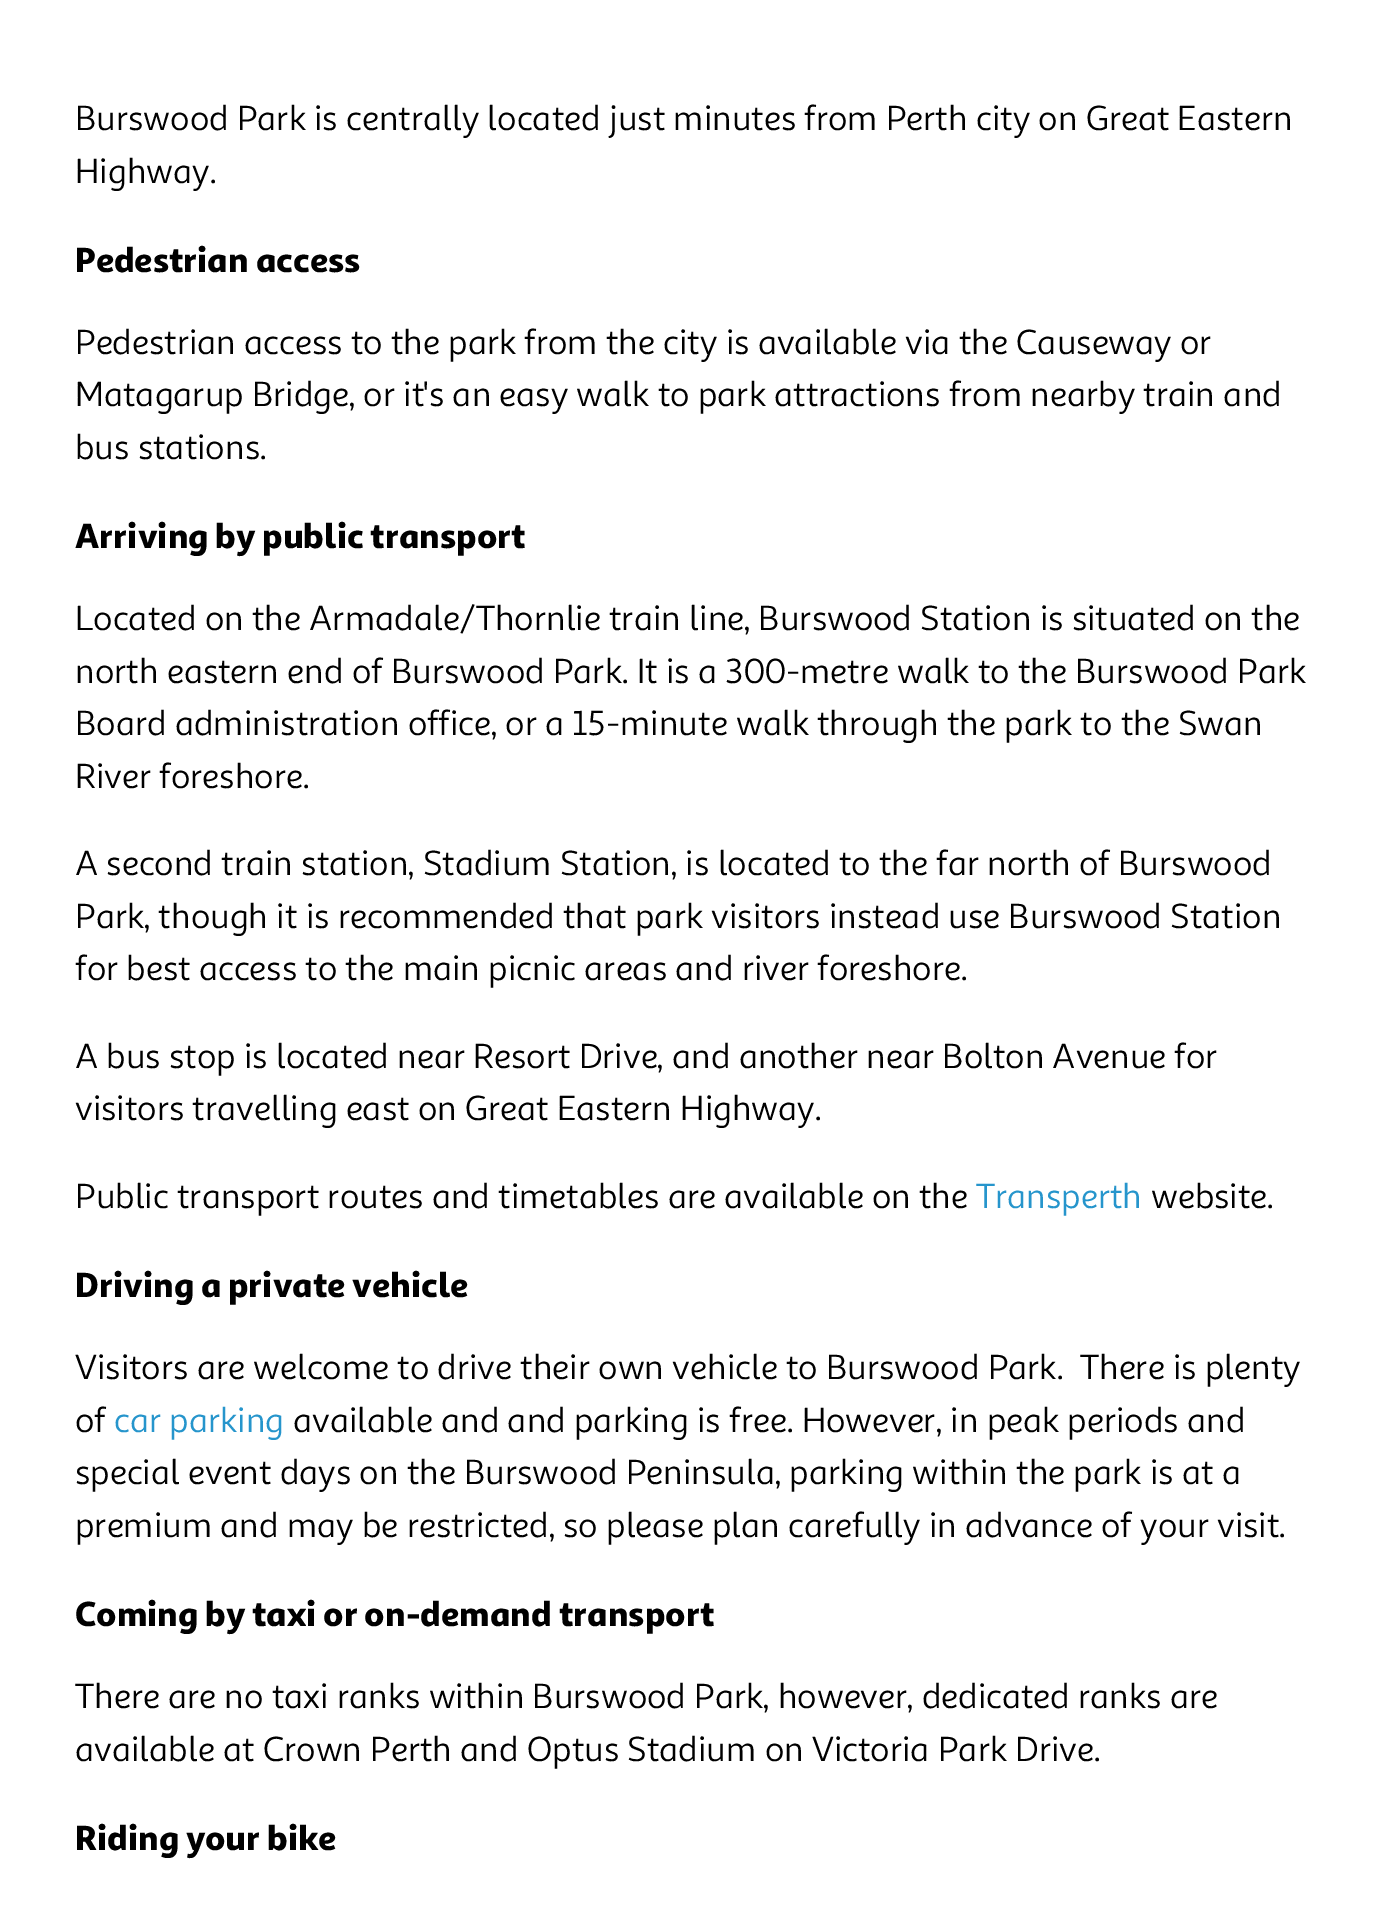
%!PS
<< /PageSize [1389 1916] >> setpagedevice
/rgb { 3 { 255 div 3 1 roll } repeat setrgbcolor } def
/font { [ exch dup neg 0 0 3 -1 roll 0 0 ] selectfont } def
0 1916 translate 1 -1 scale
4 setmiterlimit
255 255 255 rgb
0 0 1389 1916 rectfill
/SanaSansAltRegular-Regular 35 font
0 0 0 rgb
75 130 moveto (Burswood Park is centrally located just minutes from Perth city on Great Eastern) show
75 183 moveto (Highway.) show
/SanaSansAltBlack-Regular 35 font
75 272 moveto (Pedestrian access) show
/SanaSansAltRegular-Regular 35 font
[
  [(Pedestrian access to the park from the city is available via the Causeway or) 75 354]
  [(Matagarup Bridge, or it's an easy walk to park attractions from nearby train and) 75 406]
  [(bus stations.) 75 459]
] { aload pop moveto show } forall
/SanaSansAltBlack-Regular 35 font
75 548 moveto (Arriving by public transport) show
/SanaSansAltRegular-Regular 35 font
[
  [(Located on the Armadale/Thornlie train line, Burswood Station is situated on the) 75 630]
  [(north eastern end of Burswood Park. It is a 300-metre walk to the Burswood Park) 75 683]
  [(Board administration office, or a 15-minute walk through the park to the Swan) 75 735]
  [(River foreshore.) 75 788]
  [(A second train station, Stadium Station, is located to the far north of Burswood) 75 875]
  [(Park, though it is recommended that park visitors instead use Burswood Station) 75 928]
  [(for best access to the main picnic areas and river foreshore.) 75 980]
  [(A bus stop is located near Resort Drive, and another near Bolton Avenue for) 75 1068]
  [(visitors travelling east on Great Eastern Highway.) 75 1120]
  [(Public transport routes and timetables are available on the) 75 1208]
] { aload pop moveto show } forall
38 149 204 rgb
976 1208 moveto (Transperth) show
0 0 0 rgb
1151 1208 moveto (website.) show
/SanaSansAltBlack-Regular 35 font
75 1297 moveto (Driving a private vehicle) show
/SanaSansAltRegular-Regular 35 font
75 1379 moveto (Visitors are welcome to drive their own vehicle to Burswood Park.  There is plenty) show
75 1432 moveto (of) show
38 149 204 rgb
114 1432 moveto (car parking) show
0 0 0 rgb
[
  [(available and and parking is free. However, in peak periods and) 293 1432]
  [(special event days on the Burswood Peninsula, parking within the park is at a) 75 1484]
  [(premium and may be restricted, so please plan carefully in advance of your visit.) 75 1537]
] { aload pop moveto show } forall
/SanaSansAltBlack-Regular 35 font
75 1626 moveto (Coming by taxi or on-demand transport) show
/SanaSansAltRegular-Regular 35 font
75 1708 moveto (There are no taxi ranks within Burswood Park, however, dedicated ranks are) show
75 1761 moveto (available at Crown Perth and Optus Stadium on Victoria Park Drive.) show
/SanaSansAltBlack-Regular 35 font
75 1850 moveto (Riding your bike) show
showpage
